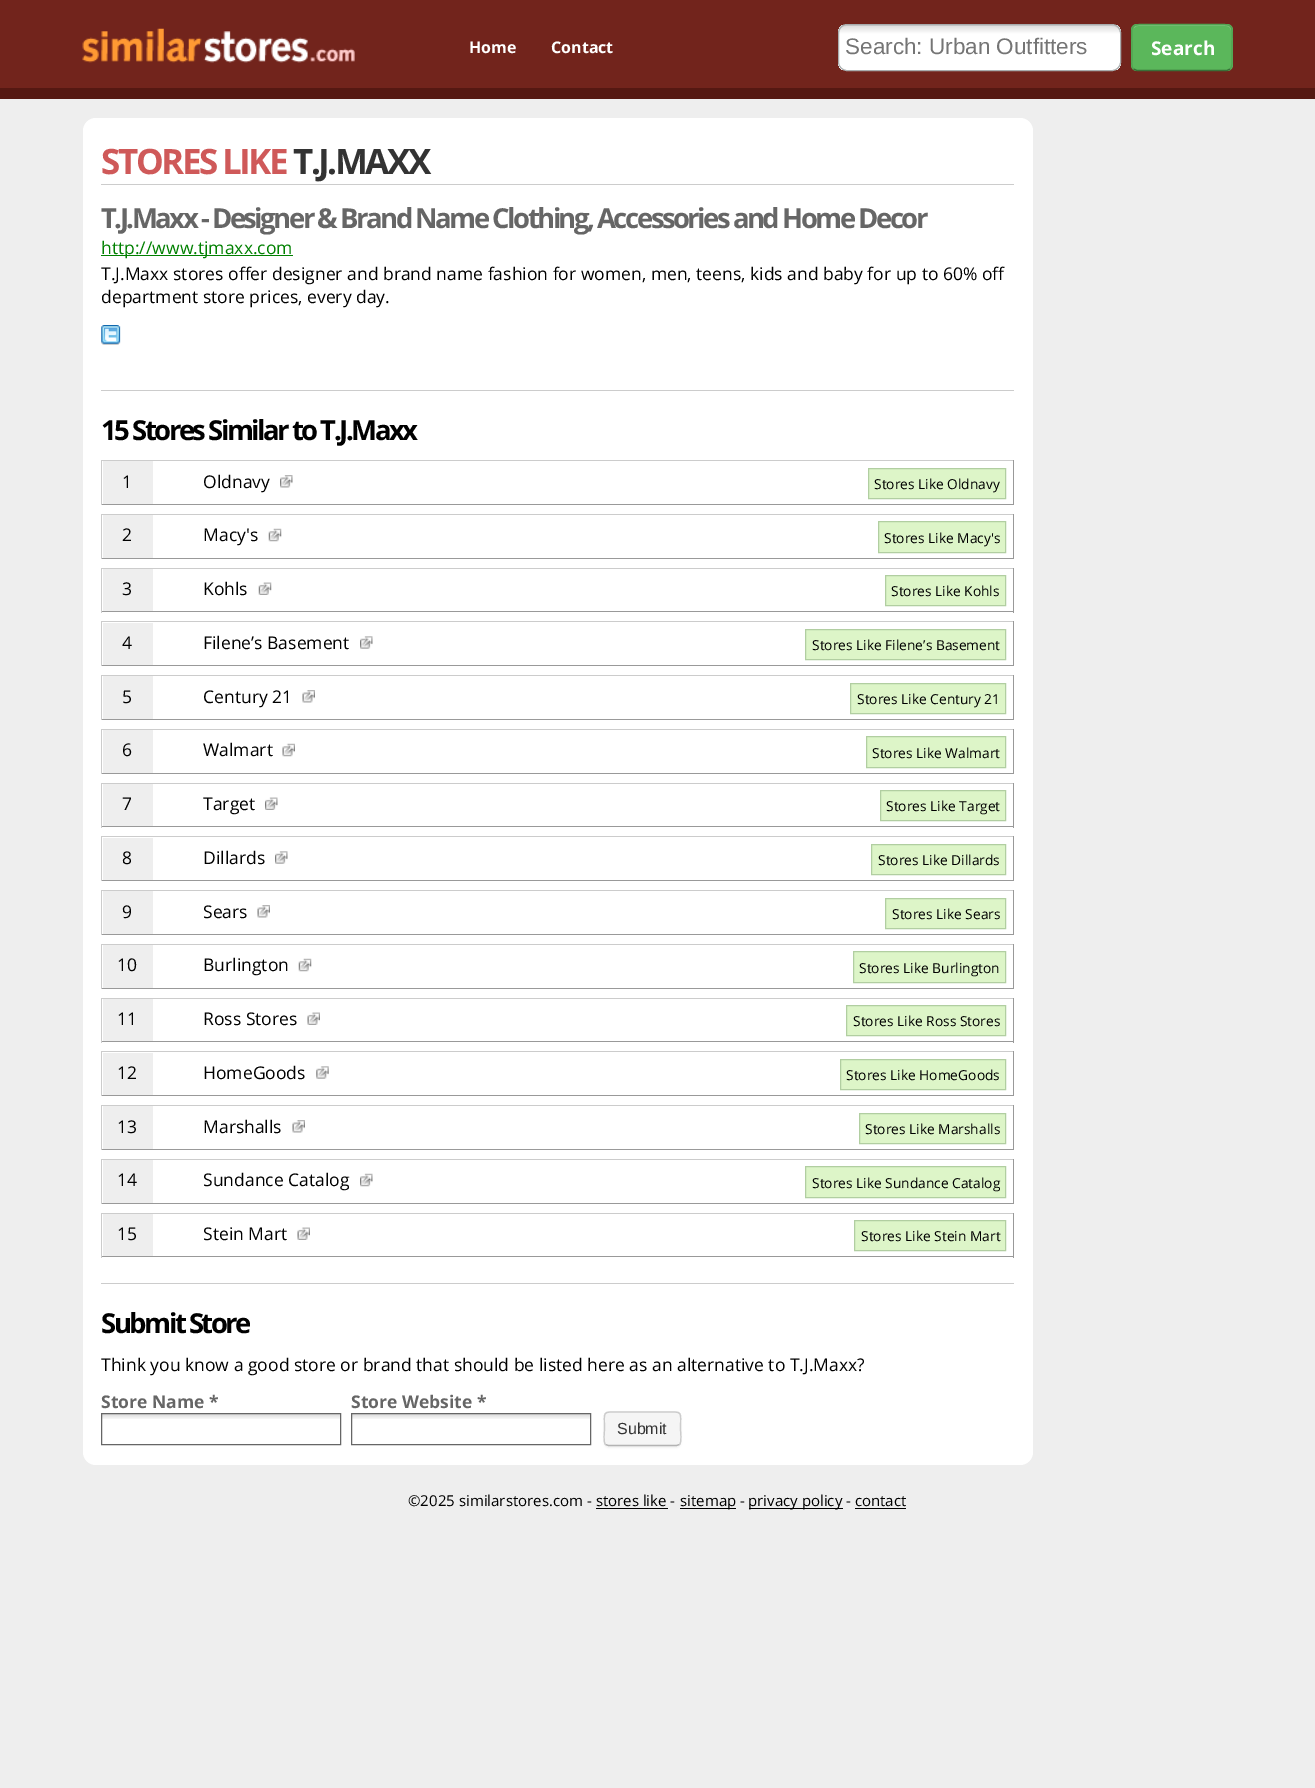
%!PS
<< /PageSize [1315 1788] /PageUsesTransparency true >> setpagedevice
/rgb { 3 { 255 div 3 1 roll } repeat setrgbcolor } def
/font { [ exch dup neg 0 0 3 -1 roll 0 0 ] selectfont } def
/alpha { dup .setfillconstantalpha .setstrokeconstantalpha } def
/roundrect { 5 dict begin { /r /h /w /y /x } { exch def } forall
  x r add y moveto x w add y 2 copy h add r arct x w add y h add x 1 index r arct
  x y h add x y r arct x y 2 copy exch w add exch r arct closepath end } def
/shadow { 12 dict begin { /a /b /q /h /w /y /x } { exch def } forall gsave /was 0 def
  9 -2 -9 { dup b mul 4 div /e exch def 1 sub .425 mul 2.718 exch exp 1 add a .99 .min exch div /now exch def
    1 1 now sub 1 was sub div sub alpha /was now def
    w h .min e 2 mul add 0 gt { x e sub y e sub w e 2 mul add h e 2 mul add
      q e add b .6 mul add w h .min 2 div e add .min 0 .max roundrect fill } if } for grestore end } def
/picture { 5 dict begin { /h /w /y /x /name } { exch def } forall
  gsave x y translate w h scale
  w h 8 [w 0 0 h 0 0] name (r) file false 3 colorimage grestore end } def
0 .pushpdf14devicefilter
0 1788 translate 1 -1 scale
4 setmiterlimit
238 238 238 rgb
0 0 1315 1788 rectfill
114 36 28 rgb
0 0 1315 88 rectfill
85 24 18 rgb
0 88 1315 11 rectfill
(img/1.rgb) 82 28 273 35 picture
gsave
838 24 283 47 9 roundrect clip newpath
gsave 838 25 moveto 1121 25 lineto 1121 70 lineto 838 70 lineto closepath clip newpath
<< /ShadingType 2 /ColorSpace /DeviceRGB /Coords [979 25 979 70] /Extend [true true] /Function << /FunctionType 3 /Domain [0 1] /Functions [<< /FunctionType 2 /Domain [0 1] /C0 [0.855 0.855 0.855] /C1 [1 1 1] /N 1 >> << /FunctionType 2 /Domain [0 1] /C0 [1 1 1] /C1 [1 1 1] /N 1 >>] /Bounds [0.2] /Encode [0 1 0 1] >> >> shfill grestore
grestore
0.07 alpha
0 0 0 rgb
846 26 moveto 1112 26 lineto 1117 26 1120 30 1120 34 curveto 1120 33 lineto 1120 29 1116 25 1112 25 curveto 847 25 lineto 843 25 839 29 839 33 curveto 839 34 lineto 839 30 842 26 846 26 curveto closepath fill
1 alpha
168 172 173 rgb
838.5 24.5 282 46 8.5 roundrect stroke
91 183 91 rgb
1131 24 102 47 6 roundrect fill
124 197 124 rgb
1138 26 moveto 1226 26 lineto 1229 26 1231 28 1231 31 curveto 1231 30 lineto 1231 27 1229 25 1226 25 curveto 1138 25 lineto 1136 25 1134 26 1134 28 curveto 1135 27 1136 26 1138 26 curveto closepath fill
56 112 56 rgb
1.2 setlinewidth
1230 69 moveto 1227 70.5 lineto 1137 70.5 lineto 1133.5 69 lineto stroke
81 163 81 rgb
1133.5 69 moveto 1131 66.5 1132 62 1132 59 curveto 1132 47.5 lineto 1132 22.5 1127.5 24.5 1152.5 24.5 curveto 1211.5 24.5 lineto 1236 24.5 1232 22.5 1232 47.5 curveto 1232 59 lineto 1232 62 1232.5 66.5 1230 69 curveto stroke
255 255 255 rgb
83 118 950 1347 13 roundrect fill
204 204 204 rgb
101 184 913 1 rectfill
0 128 0 rgb
101 255 192 1 rectfill
(img/2.rgb) 101 325 20 20 picture
[
  [101 390 913 1 204 204 204]
  [101 460 913 1 204 204 204]
  [1013 460 1 45 153 153 153]
  [101 504 913 1 153 153 153]
  [101 460 1 45 204 204 204]
  [103 461 50 43 238 238 238]
] { aload pop rgb rectfill } forall
(img/3.rgb) 280 475 13 13 picture
221 245 200 rgb
868.5 468.5 moveto 1005.5 468.5 lineto 1005.5 498.5 lineto 868.5 498.5 lineto closepath gsave fill grestore
177 206 161 rgb
1 setlinewidth
stroke
[
  [101 514 913 1 204 204 204]
  [1013 514 1 45 153 153 153]
  [101 558 913 1 153 153 153]
  [101 514 1 45 204 204 204]
  [103 515 50 43 238 238 238]
] { aload pop rgb rectfill } forall
(img/4.rgb) 268 528 14 14 picture
221 245 200 rgb
878.5 521.5 moveto 1005.5 521.5 lineto 1005.5 552.5 lineto 878.5 552.5 lineto closepath gsave fill grestore
177 206 161 rgb
stroke
[
  [101 568 913 1 204 204 204]
  [1013 568 1 45 153 153 153]
  [101 611 913 1 153 153 153]
  [101 568 1 45 204 204 204]
  [103 569 50 42 238 238 238]
] { aload pop rgb rectfill } forall
(img/5.rgb) 258 582 14 13 picture
221 245 200 rgb
885.5 575.5 moveto 1005.5 575.5 lineto 1005.5 605.5 lineto 885.5 605.5 lineto closepath gsave fill grestore
177 206 161 rgb
stroke
[
  [101 621 913 1 204 204 204]
  [1013 621 1 45 153 153 153]
  [101 665 913 1 153 153 153]
  [101 621 1 45 204 204 204]
  [103 623 50 42 238 238 238]
] { aload pop rgb rectfill } forall
(img/6.rgb) 360 636 13 13 picture
221 245 200 rgb
805.5 629.5 moveto 1005.5 629.5 lineto 1005.5 659.5 lineto 805.5 659.5 lineto closepath gsave fill grestore
177 206 161 rgb
stroke
[
  [101 675 913 1 204 204 204]
  [1013 675 1 45 153 153 153]
  [101 719 913 1 153 153 153]
  [101 675 1 45 204 204 204]
  [103 676 50 43 238 238 238]
] { aload pop rgb rectfill } forall
(img/7.rgb) 302 690 13 13 picture
221 245 200 rgb
850.5 683.5 moveto 1005.5 683.5 lineto 1005.5 713.5 lineto 850.5 713.5 lineto closepath gsave fill grestore
177 206 161 rgb
stroke
[
  [101 729 913 1 204 204 204]
  [1013 729 1 45 153 153 153]
  [101 773 913 1 153 153 153]
  [101 729 1 45 204 204 204]
  [103 730 50 43 238 238 238]
] { aload pop rgb rectfill } forall
(img/8.rgb) 282 743 13 14 picture
221 245 200 rgb
866.5 736.5 moveto 1005.5 736.5 lineto 1005.5 767.5 lineto 866.5 767.5 lineto closepath gsave fill grestore
177 206 161 rgb
stroke
[
  [101 783 913 1 204 204 204]
  [1013 783 1 45 153 153 153]
  [101 826 913 1 153 153 153]
  [101 783 1 45 204 204 204]
  [103 784 50 42 238 238 238]
] { aload pop rgb rectfill } forall
(img/9.rgb) 265 797 13 13 picture
221 245 200 rgb
880.5 790.5 moveto 1005.5 790.5 lineto 1005.5 820.5 lineto 880.5 820.5 lineto closepath gsave fill grestore
177 206 161 rgb
stroke
[
  [101 836 913 1 204 204 204]
  [1013 836 1 45 153 153 153]
  [101 880 913 1 153 153 153]
  [101 836 1 45 204 204 204]
  [103 838 50 42 238 238 238]
] { aload pop rgb rectfill } forall
(img/10.rgb) 275 851 13 13 picture
221 245 200 rgb
871.5 844.5 moveto 1005.5 844.5 lineto 1005.5 874.5 lineto 871.5 874.5 lineto closepath gsave fill grestore
177 206 161 rgb
stroke
[
  [101 890 913 1 204 204 204]
  [1013 890 1 45 153 153 153]
  [101 934 913 1 153 153 153]
  [101 890 1 45 204 204 204]
  [103 891 50 43 238 238 238]
] { aload pop rgb rectfill } forall
(img/7.rgb) 257 905 13 13 picture
221 245 200 rgb
885.5 898.5 moveto 1005.5 898.5 lineto 1005.5 928.5 lineto 885.5 928.5 lineto closepath gsave fill grestore
177 206 161 rgb
stroke
[
  [101 944 913 1 204 204 204]
  [1013 944 1 45 153 153 153]
  [101 988 913 1 153 153 153]
  [101 944 1 45 204 204 204]
  [103 945 50 43 238 238 238]
] { aload pop rgb rectfill } forall
(img/4.rgb) 298 958 14 14 picture
221 245 200 rgb
853.5 951.5 moveto 1005.5 951.5 lineto 1005.5 982.5 lineto 853.5 982.5 lineto closepath gsave fill grestore
177 206 161 rgb
stroke
[
  [101 998 913 1 204 204 204]
  [1013 998 1 45 153 153 153]
  [101 1041 913 1 153 153 153]
  [101 998 1 45 204 204 204]
  [103 999 50 42 238 238 238]
] { aload pop rgb rectfill } forall
(img/11.rgb) 307 1012 13 13 picture
221 245 200 rgb
846.5 1005.5 moveto 1005.5 1005.5 lineto 1005.5 1035.5 lineto 846.5 1035.5 lineto closepath gsave fill grestore
177 206 161 rgb
stroke
[
  [101 1051 913 1 204 204 204]
  [1013 1051 1 45 153 153 153]
  [101 1095 913 1 153 153 153]
  [101 1051 1 45 204 204 204]
  [103 1053 50 42 238 238 238]
] { aload pop rgb rectfill } forall
(img/12.rgb) 316 1066 13 13 picture
221 245 200 rgb
840.5 1059.5 moveto 1005.5 1059.5 lineto 1005.5 1089.5 lineto 840.5 1089.5 lineto closepath gsave fill grestore
177 206 161 rgb
stroke
[
  [101 1105 913 1 204 204 204]
  [1013 1105 1 45 153 153 153]
  [101 1149 913 1 153 153 153]
  [101 1105 1 45 204 204 204]
  [103 1106 50 43 238 238 238]
] { aload pop rgb rectfill } forall
(img/13.rgb) 292 1120 13 13 picture
221 245 200 rgb
859.5 1113.5 moveto 1005.5 1113.5 lineto 1005.5 1143.5 lineto 859.5 1143.5 lineto closepath gsave fill grestore
177 206 161 rgb
stroke
[
  [101 1159 913 1 204 204 204]
  [1013 1159 1 45 153 153 153]
  [101 1203 913 1 153 153 153]
  [101 1159 1 45 204 204 204]
  [103 1160 50 43 238 238 238]
] { aload pop rgb rectfill } forall
(img/14.rgb) 360 1173 13 14 picture
221 245 200 rgb
805.5 1166.5 moveto 1005.5 1166.5 lineto 1005.5 1197.5 lineto 805.5 1197.5 lineto closepath gsave fill grestore
177 206 161 rgb
stroke
[
  [101 1213 913 1 204 204 204]
  [1013 1213 1 45 153 153 153]
  [101 1256 913 1 153 153 153]
  [101 1213 1 45 204 204 204]
  [103 1214 50 42 238 238 238]
] { aload pop rgb rectfill } forall
(img/11.rgb) 297 1227 13 13 picture
221 245 200 rgb
854.5 1220.5 moveto 1005.5 1220.5 lineto 1005.5 1250.5 lineto 854.5 1250.5 lineto closepath gsave fill grestore
177 206 161 rgb
stroke
204 204 204 rgb
101 1283 913 1 rectfill
gsave 102 1414 moveto 340 1414 lineto 340 1420 lineto 102 1420 lineto closepath clip newpath
<< /ShadingType 2 /ColorSpace /DeviceRGB /Coords [221 1414 221 1444] /Extend [true true] /Function << /FunctionType 3 /Domain [0 1] /Functions [<< /FunctionType 2 /Domain [0 1] /C0 [0.855 0.855 0.855] /C1 [1 1 1] /N 1 >> << /FunctionType 2 /Domain [0 1] /C0 [1 1 1] /C1 [1 1 1] /N 1 >>] /Bounds [0.2] /Encode [0 1 0 1] >> >> shfill grestore
102 102 102 rgb
101.5 1413.5 239 31 rectstroke
gsave 352 1414 moveto 590 1414 lineto 590 1420 lineto 352 1420 lineto closepath clip newpath
<< /ShadingType 2 /ColorSpace /DeviceRGB /Coords [471 1414 471 1444] /Extend [true true] /Function << /FunctionType 3 /Domain [0 1] /Functions [<< /FunctionType 2 /Domain [0 1] /C0 [0.855 0.855 0.855] /C1 [1 1 1] /N 1 >> << /FunctionType 2 /Domain [0 1] /C0 [1 1 1] /C1 [1 1 1] /N 1 >>] /Bounds [0.2] /Encode [0 1 0 1] >> >> shfill grestore
351.5 1413.5 239 31 rectstroke
0 0 0 rgb
604 1413 77 35 5 1 0.05 shadow
245 245 245 rgb
604 1411 77 35 5 roundrect fill
179 179 179 rgb
1.2 setlinewidth
679.5 1444.5 moveto 676.5 1445.5 lineto 608.5 1445.5 lineto 605.5 1444.5 lineto stroke
204 204 204 rgb
605.5 1444.5 moveto 603 1442 604.5 1432 604.5 1429 curveto 604.5 1410.5 601.5 1412 620 1412 curveto 665 1412 lineto 683.5 1412 680.5 1410.5 680.5 1429 curveto 680.5 1432 682 1442 679.5 1444.5 curveto stroke
[
  [680 1508 56 1 0 0 0]
  [749 1508 94 1 0 0 0]
  [596 1508 72 1 0 0 0]
  [855 1508 51 1 0 0 0]
] { aload pop rgb rectfill } forall
/OpenSans-Bold 16 font
255 255 255 rgb
469 53 moveto (Home) show
551 53 moveto (Contact) show
/LiberationSans-Regular 22.5 font
117 117 117 rgb
845 54 moveto (Search: Urban Outfitters) show
/OpenSans-Bold 19 font
255 255 255 rgb
1151 55 moveto (Search) show
/OpenSans-Bold 35 font
207 89 89 rgb
101 174 moveto -2.5 0 (STORES LIKE) ashow
51 51 51 rgb
293 174 moveto -2.5 0 (T.J.MAXX) ashow
/OpenSans-Bold 27.5 font
102 102 102 rgb
101 228 moveto -2.5 0 (T.J.Maxx - Designer & Brand Name Clothing, Accessories and Home Decor) ashow
/OpenSans-Regular 17.5 font
0 128 0 rgb
101 254 moveto (http://www.tjmaxx.com) show
0 0 0 rgb
101 280 moveto (T.J.Maxx stores offer designer and brand name fashion for women, men, teens, kids and baby for up to 60% off) show
101 303 moveto (department store prices, every day.) show
/OpenSans-Bold 27.5 font
101 440 moveto -2.5 0 (15 Stores Similar to T.J.Maxx) ashow
/OpenSans-Regular 17.5 font
122 488 moveto (1) show
203 488 moveto (Oldnavy) show
/OpenSans-Regular 13.75 font
874 489 moveto (Stores Like Oldnavy) show
/OpenSans-Regular 17.5 font
122 541 moveto (2) show
203 541 moveto (Macy's) show
/OpenSans-Regular 13.75 font
884 543 moveto (Stores Like Macy's) show
/OpenSans-Regular 17.5 font
122 595 moveto (3) show
203 595 moveto (Kohls) show
/OpenSans-Regular 13.75 font
891 596 moveto (Stores Like Kohls) show
/OpenSans-Regular 17.5 font
122 649 moveto (4) show
203 649 moveto (Filene’s Basement) show
/OpenSans-Regular 13.75 font
812 650 moveto (Stores Like Filene’s Basement) show
/OpenSans-Regular 17.5 font
122 703 moveto (5) show
203 703 moveto (Century 21) show
/OpenSans-Regular 13.75 font
857 704 moveto (Stores Like Century 21) show
/OpenSans-Regular 17.5 font
122 756 moveto (6) show
203 756 moveto (Walmart) show
/OpenSans-Regular 13.75 font
872 758 moveto (Stores Like Walmart) show
/OpenSans-Regular 17.5 font
122 810 moveto (7) show
203 810 moveto (Target) show
/OpenSans-Regular 13.75 font
886 811 moveto (Stores Like Target) show
/OpenSans-Regular 17.5 font
122 864 moveto (8) show
203 864 moveto (Dillards) show
/OpenSans-Regular 13.75 font
878 865 moveto (Stores Like Dillards) show
/OpenSans-Regular 17.5 font
122 918 moveto (9) show
203 918 moveto (Sears) show
/OpenSans-Regular 13.75 font
892 919 moveto (Stores Like Sears) show
/OpenSans-Regular 17.5 font
117 971 moveto (10) show
203 971 moveto (Burlington) show
/OpenSans-Regular 13.75 font
859 973 moveto (Stores Like Burlington) show
/OpenSans-Regular 17.5 font
117 1025 moveto (11) show
203 1025 moveto (Ross Stores) show
/OpenSans-Regular 13.75 font
853 1026 moveto (Stores Like Ross Stores) show
/OpenSans-Regular 17.5 font
117 1079 moveto (12) show
203 1079 moveto (HomeGoods) show
/OpenSans-Regular 13.75 font
846 1080 moveto (Stores Like HomeGoods) show
/OpenSans-Regular 17.5 font
117 1133 moveto (13) show
203 1133 moveto (Marshalls) show
/OpenSans-Regular 13.75 font
865 1134 moveto (Stores Like Marshalls) show
/OpenSans-Regular 17.5 font
117 1186 moveto (14) show
203 1186 moveto (Sundance Catalog) show
/OpenSans-Regular 13.75 font
812 1188 moveto (Stores Like Sundance Catalog) show
/OpenSans-Regular 17.5 font
117 1240 moveto (15) show
203 1240 moveto (Stein Mart) show
/OpenSans-Regular 13.75 font
861 1241 moveto (Stores Like Stein Mart) show
/OpenSans-Bold 27.5 font
101 1333 moveto -2.5 0 (Submit Store) ashow
/OpenSans-Regular 17.5 font
101 1371 moveto (Think you know a good store or brand that should be listed here as an alternative to T.J.Maxx?) show
/OpenSans-Bold 17.5 font
102 102 102 rgb
101 1408 moveto (Store Name *) show
351 1408 moveto (Store Website *) show
/LiberationSans-Regular 16 font
51 51 51 rgb
617 1434 moveto (Submit) show
/OpenSans-Regular 15 font
0 0 0 rgb
[
  [(©2025 similarstores.com - stores like -) 408 1506]
  [(sitemap -) 680 1506]
  [(privacy policy - contact) 748 1506]
] { aload pop moveto show } forall
.poppdf14devicefilter showpage
